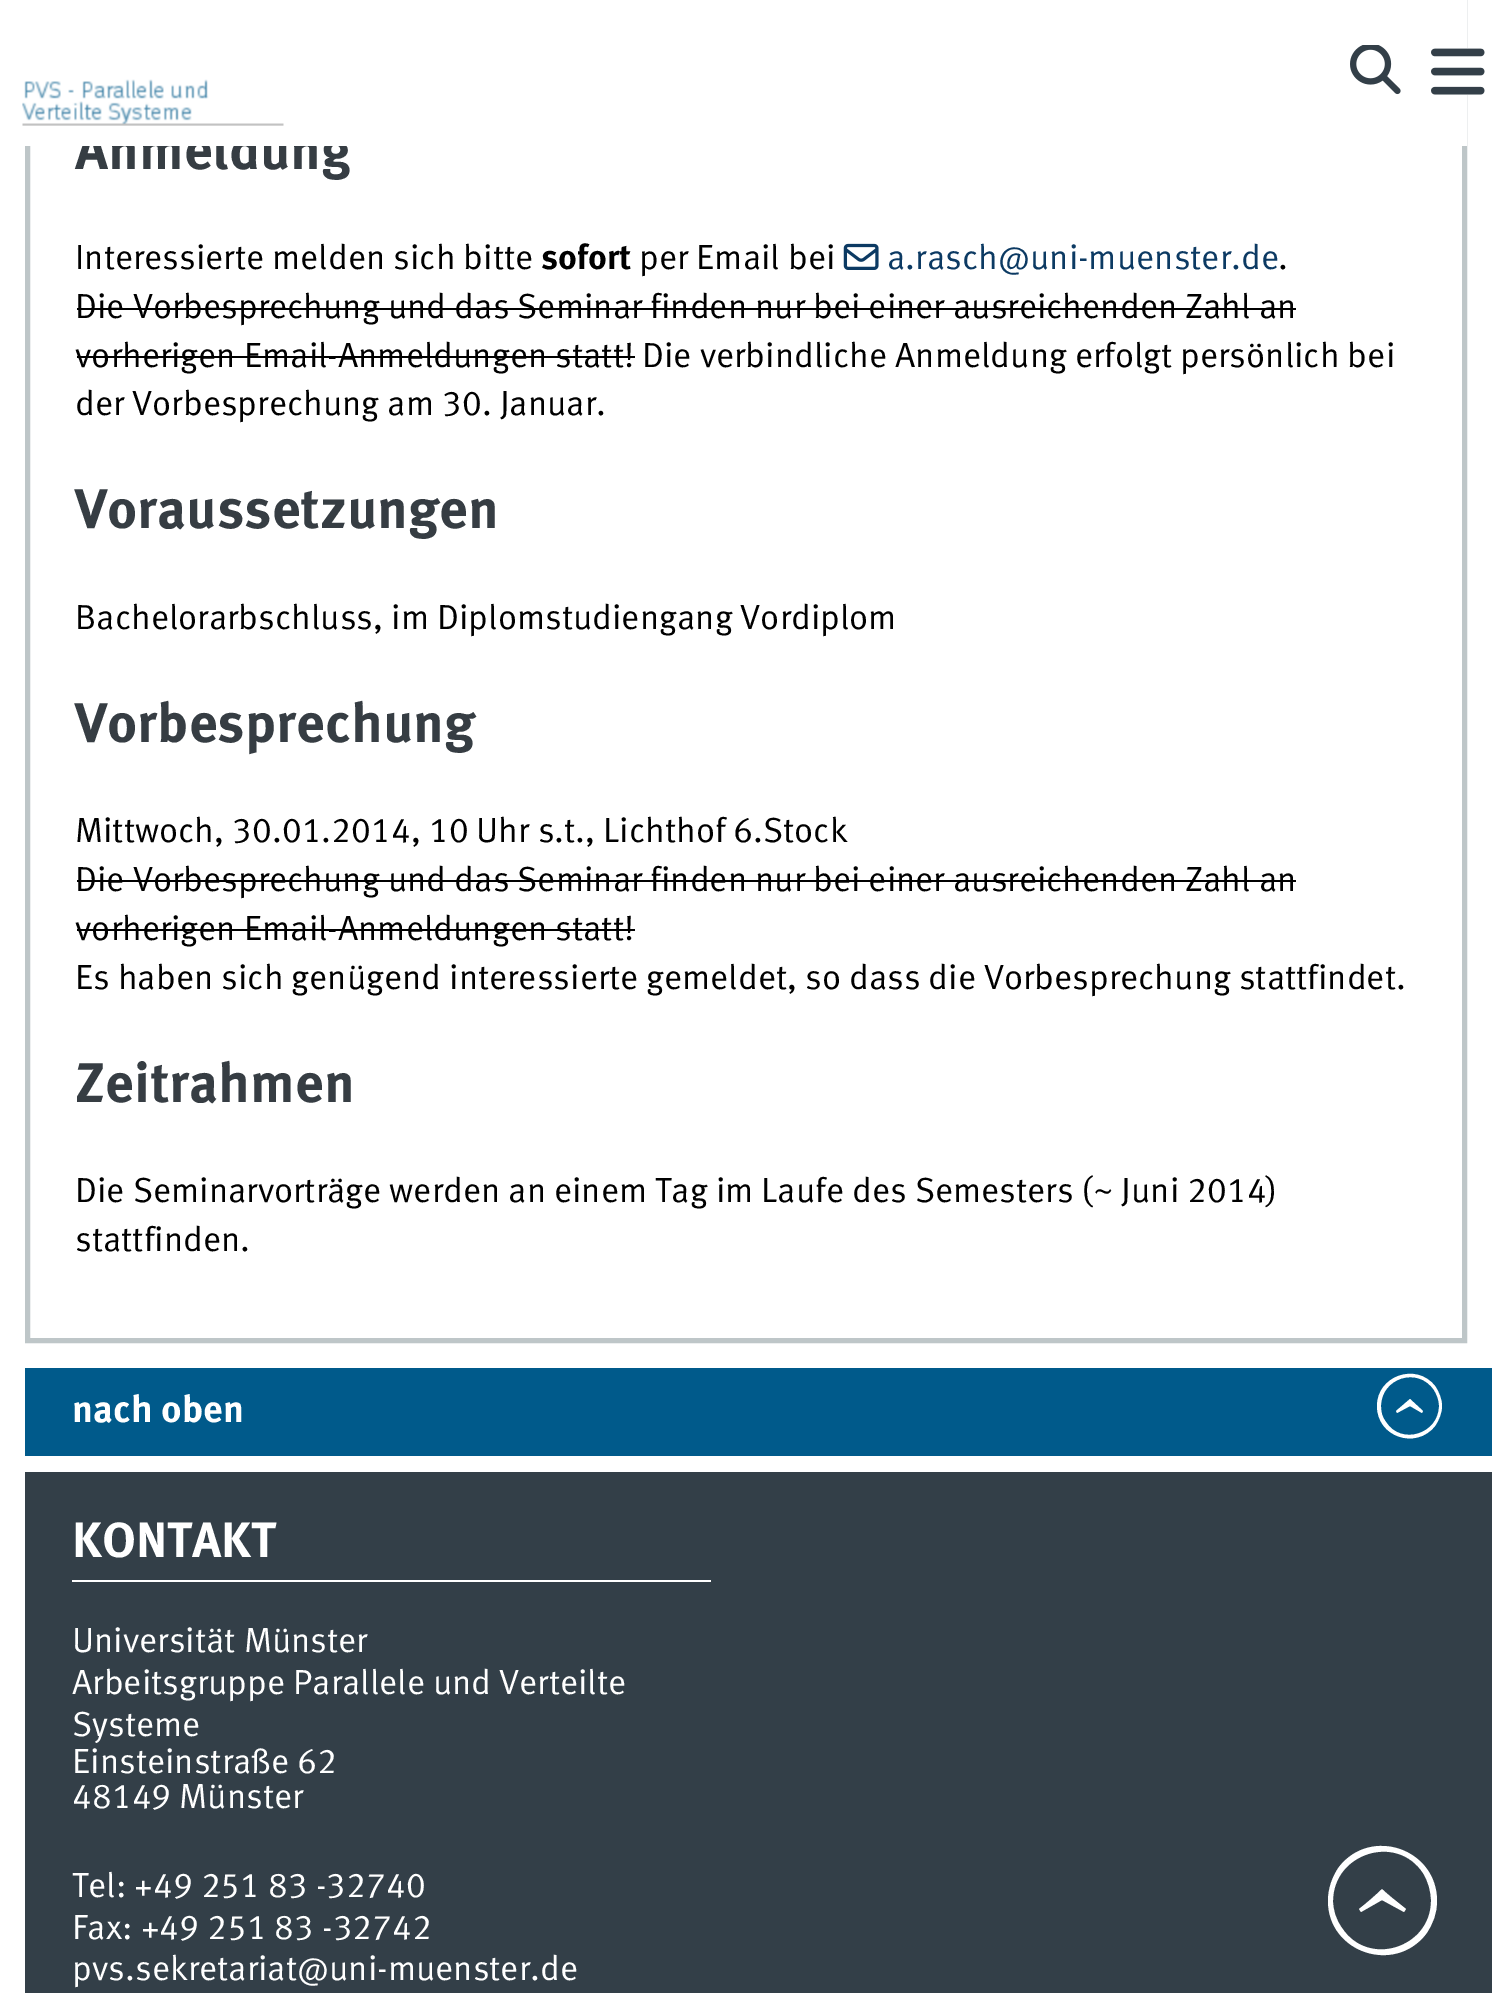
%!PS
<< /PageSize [1512 1993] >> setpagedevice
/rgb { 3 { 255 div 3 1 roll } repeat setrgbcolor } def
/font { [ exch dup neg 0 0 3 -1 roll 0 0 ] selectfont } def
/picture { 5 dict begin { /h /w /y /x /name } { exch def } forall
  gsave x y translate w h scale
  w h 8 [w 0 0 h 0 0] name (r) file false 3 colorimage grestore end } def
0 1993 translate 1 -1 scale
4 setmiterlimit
255 255 255 rgb
0 0 1512 1993 rectfill
190 198 200 rgb
5 setlinewidth
27.5 -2.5 1437 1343 rectstroke
(img/4.rgb) 843 243 36 27 picture
[
  [77 308 1219 2 0 0 0]
  [77 356 558 2 0 0 0]
  [77 880 1219 2 0 0 0]
  [77 929 558 2 0 0 0]
  [25 1472 1467 521 51 63 72]
] { aload pop rgb rectfill } forall
255 255 255 rgb
1328 1901 moveto 1328 1889 1332 1877 1339 1867 curveto 1371 1826 1437 1849 1437 1901 curveto 1437 1913 1433 1924 1426 1934 curveto 1394 1975 1328 1952 1328 1901 curveto closepath 1333 1901 moveto 1333 1910 1336 1920 1342 1928 curveto 1368 1968 1431 1948 1431 1901 curveto 1431 1891 1428 1881 1423 1873 curveto 1397 1833 1333 1853 1333 1901 curveto closepath 1359 1909 moveto 1368 1902 1376 1895 1382 1889 curveto 1388 1895 1396 1901 1406 1909 curveto 1404 1912 lineto 1382 1900 lineto 1361 1912 lineto closepath fill
0 90 139 rgb
25 1368 1467 88 rectfill
255 255 255 rgb
1377 1406 moveto 1377 1376 1416 1362 1435 1386 curveto 1439 1392 1442 1399 1442 1406 curveto 1442 1413 1439 1420 1435 1426 curveto 1416 1450 1377 1437 1377 1406 curveto closepath 1381 1406 moveto 1381 1412 1382 1417 1386 1422 curveto 1401 1446 1439 1434 1439 1406 curveto 1439 1400 1437 1395 1434 1390 curveto 1418 1366 1381 1378 1381 1406 curveto closepath 1396 1411 moveto 1410 1399 lineto 1423 1411 lineto 1422 1413 lineto 1410 1406 lineto 1397 1413 lineto closepath fill
72 1580 639 2 rectfill
/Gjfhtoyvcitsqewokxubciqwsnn-Bold 55.75 font
54 61 67 rgb
75 169 moveto (Anmeldung) show
255 255 255 rgb
25 0 1442 146 rectfill
(img/2.rgb) 1431 48 54 47 picture
(img/1.rgb) 1350 45 51 50 picture
(img/3.rgb) 22 79 262 47 picture
/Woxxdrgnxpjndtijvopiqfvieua-Regular 34.8 font
0 0 0 rgb
75 269 moveto (Interessierte melden sich bitte) show
/Gjfhtoyvcitsqewokxubciqwsnn-Bold 34.8 font
541 269 moveto (sofort) show
/Woxxdrgnxpjndtijvopiqfvieua-Regular 34.8 font
639 269 moveto (per Email bei) show
12 58 99 rgb
887 269 moveto (a.rasch@uni-muenster.de) show
0 0 0 rgb
[
  [(.) 1278 269]
  [(Die Vorbesprechung und das Seminar finden nur bei einer ausreichenden Zahl an) 75 318]
  [(vorherigen Email-Anmeldungen statt!) 75 367]
  [(Die verbindliche Anmeldung erfolgt persönlich bei) 642 367]
  [(der Vorbesprechung am 30. Januar.) 75 415]
] { aload pop moveto show } forall
/Gjfhtoyvcitsqewokxubciqwsnn-Bold 55.75 font
54 61 67 rgb
75 528 moveto (Voraussetzungen) show
/Woxxdrgnxpjndtijvopiqfvieua-Regular 34.8 font
0 0 0 rgb
75 629 moveto (Bachelorarbschluss, im Diplomstudiengang Vordiplom) show
/Gjfhtoyvcitsqewokxubciqwsnn-Bold 55.75 font
54 61 67 rgb
75 742 moveto (Vorbesprechung) show
/Woxxdrgnxpjndtijvopiqfvieua-Regular 34.8 font
0 0 0 rgb
[
  [(Mittwoch, 30.01.2014, 10 Uhr s.t., Lichthof 6.Stock) 75 842]
  [(Die Vorbesprechung und das Seminar finden nur bei einer ausreichenden Zahl an) 75 891]
  [(vorherigen Email-Anmeldungen statt!) 75 940]
] { aload pop moveto show } forall
75 989 moveto -0.1 0 32 (Es haben sich genügend interessierte gemeldet, so dass die Vorbesprechung stattfindet.) widthshow
/Gjfhtoyvcitsqewokxubciqwsnn-Bold 55.75 font
54 61 67 rgb
75 1102 moveto (Zeitrahmen) show
/Woxxdrgnxpjndtijvopiqfvieua-Regular 34.8 font
0 0 0 rgb
75 1202 moveto (Die Seminarvorträge werden an einem Tag im Laufe des Semesters \(~ Juni 2014\)) show
75 1251 moveto (stattfinden.) show
/Gjfhtoyvcitsqewokxubciqwsnn-Bold 38 font
255 255 255 rgb
72 1422 moveto (nach oben) show
/Gjfhtoyvcitsqewokxubciqwsnn-Bold 49.5 font
72 1557 moveto (KONTAKT) show
/Woxxdrgnxpjndtijvopiqfvieua-Regular 34.8 font
[
  [(Universität Münster) 72 1652]
  [(Arbeitsgruppe Parallele und Verteilte) 72 1694]
  [(Systeme) 72 1736]
  [(Einsteinstraße 62) 72 1773]
  [(48149 Münster) 72 1808]
  [(Tel: +49 251 83 -32740) 72 1897]
  [(Fax: +49 251 83 -32742) 72 1939]
  [(pvs.sekretariat@uni-muenster.de) 72 1980]
] { aload pop moveto show } forall
showpage
